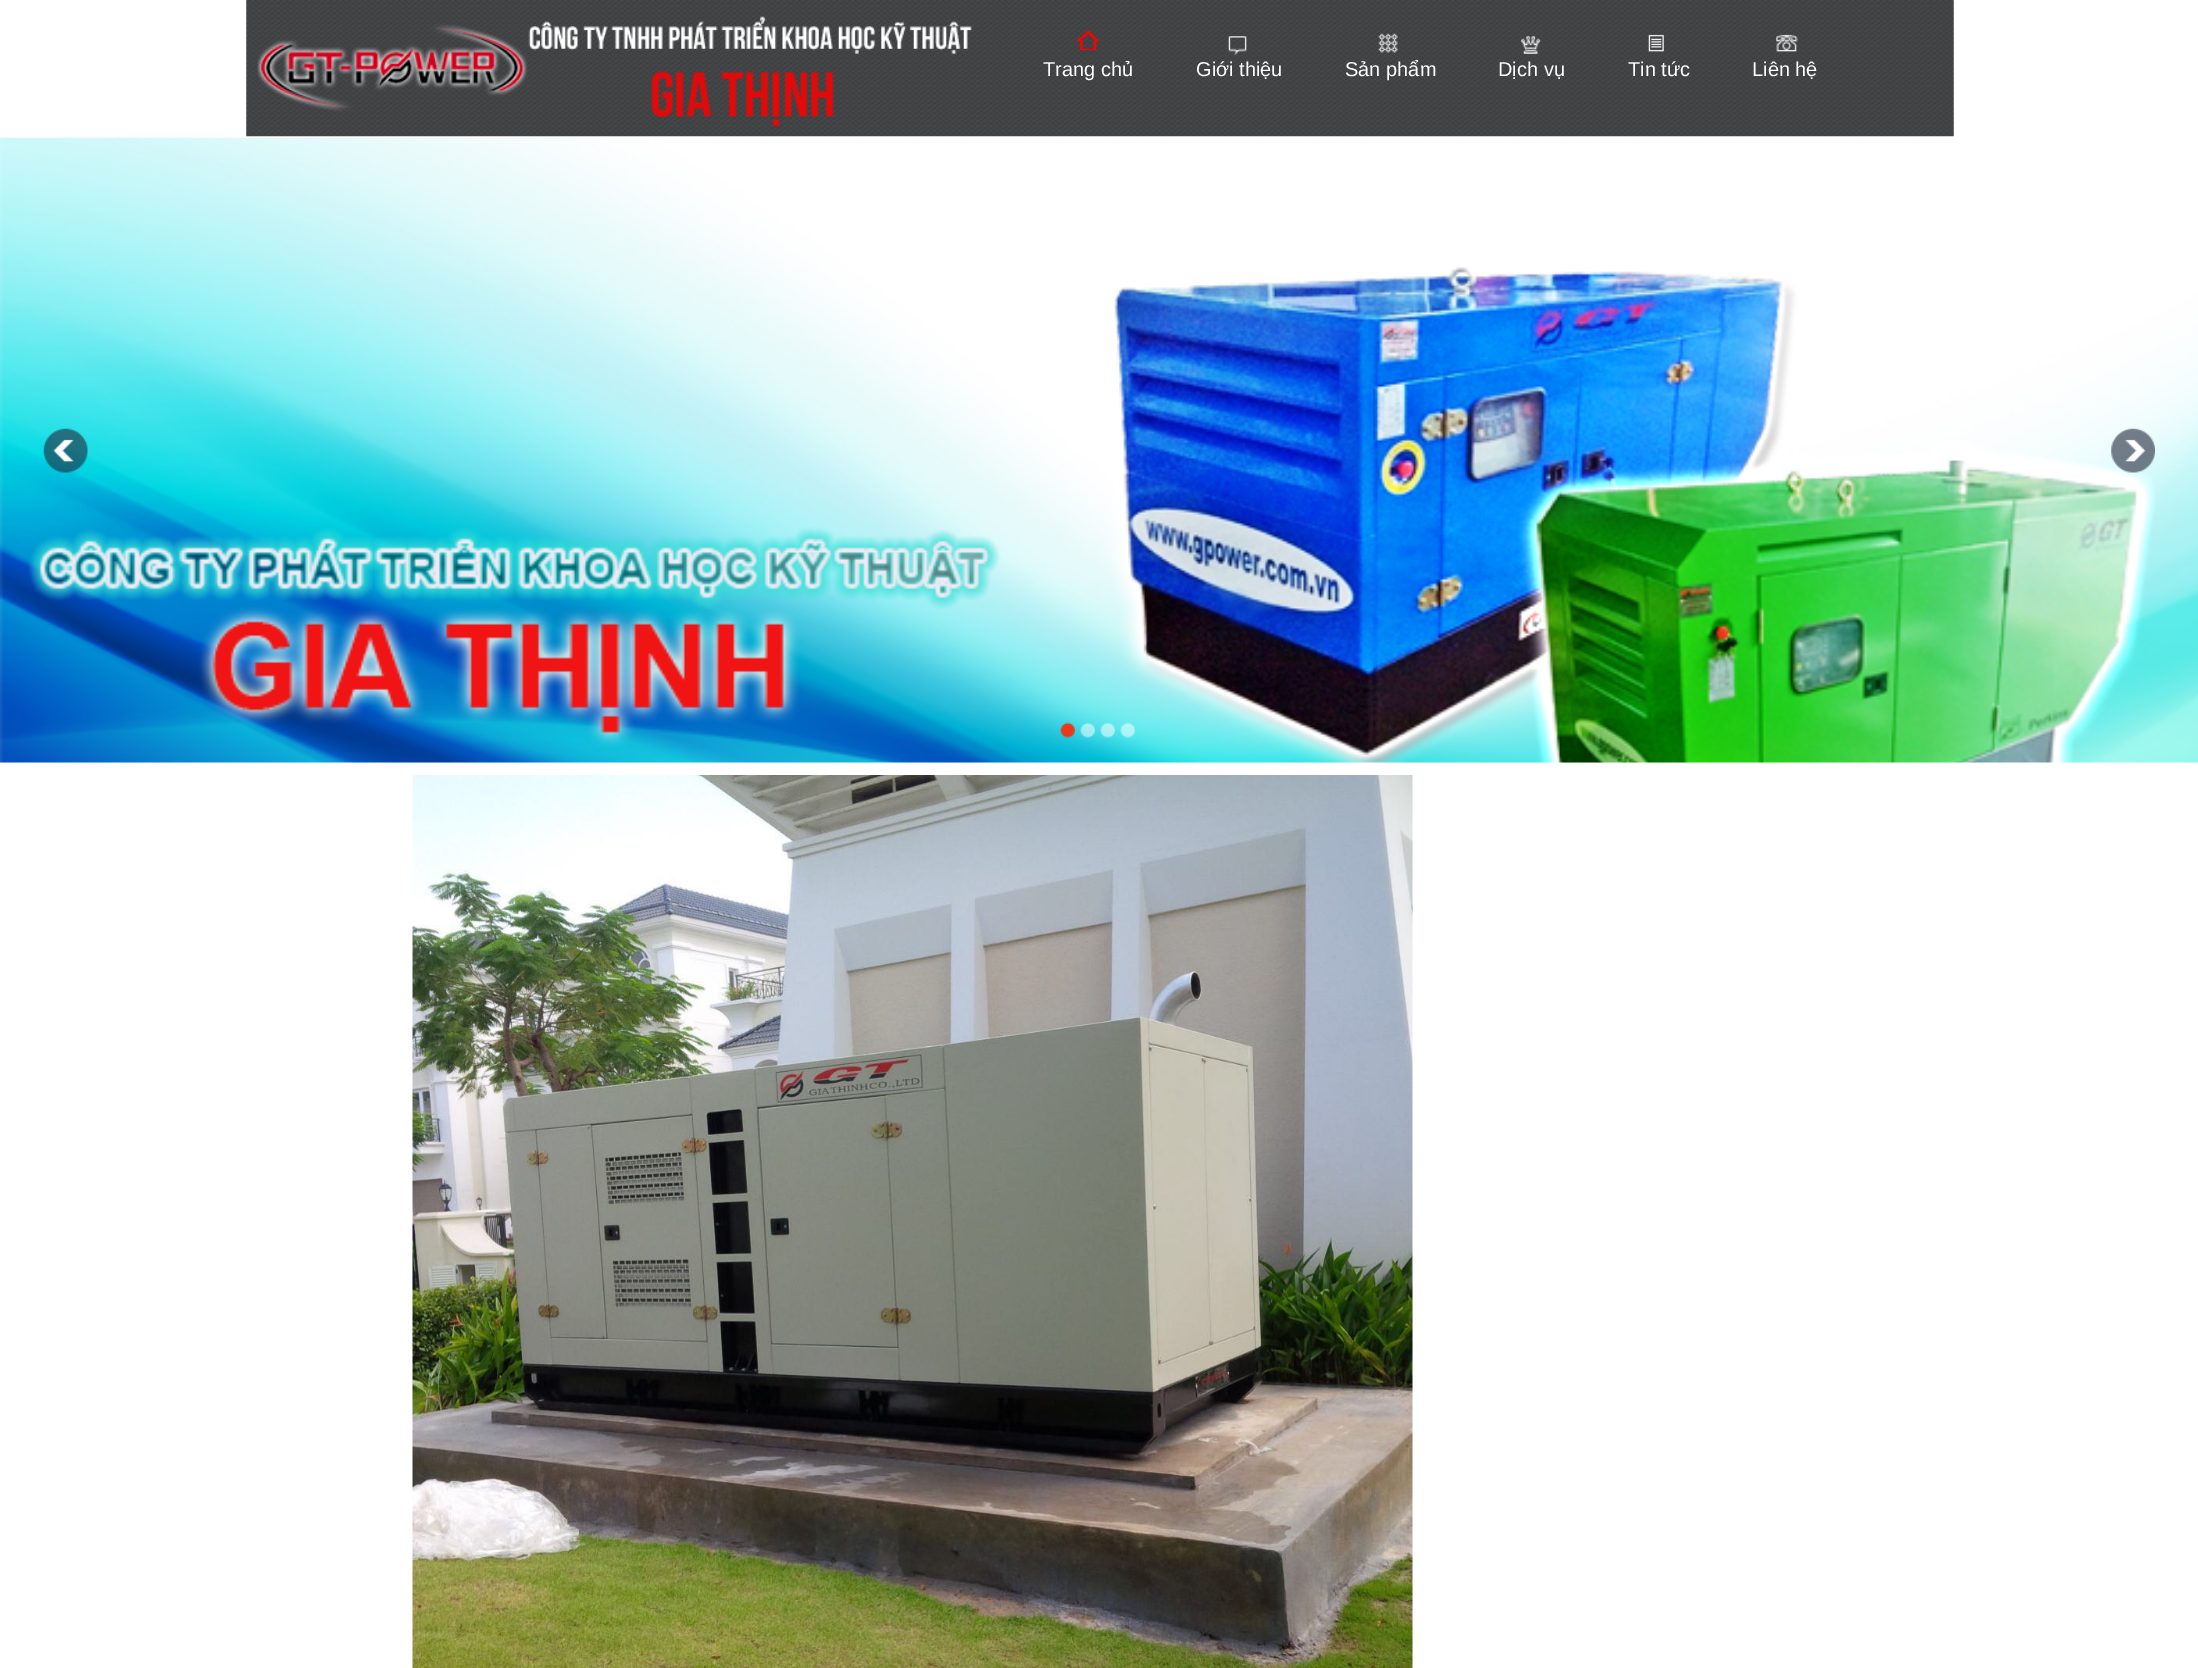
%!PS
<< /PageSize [2198 1668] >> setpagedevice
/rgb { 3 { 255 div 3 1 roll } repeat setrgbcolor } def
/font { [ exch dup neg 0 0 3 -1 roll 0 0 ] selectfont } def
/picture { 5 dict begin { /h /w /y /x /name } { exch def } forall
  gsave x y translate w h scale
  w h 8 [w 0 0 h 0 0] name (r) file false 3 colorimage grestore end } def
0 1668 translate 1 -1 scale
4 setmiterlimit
255 255 255 rgb
0 0 2198 1668 rectfill
(img/1.rgb) 246 0 1708 137 picture
(img/2.rgb) 257 16 715 111 picture
(img/3.rgb) 1077 31 22 20 picture
(img/4.rgb) 1228 36 19 19 picture
(img/5.rgb) 1378 33 20 20 picture
(img/6.rgb) 1521 36 20 18 picture
(img/7.rgb) 1648 34 16 18 picture
(img/8.rgb) 1776 34 22 18 picture
(img/9.rgb) 0 137 2198 626 picture
(img/10.rgb) 43 428 45 45 picture
(img/11.rgb) 2111 428 44 45 picture
(img/12.rgb) 1060 722 15 16 picture
(img/13.rgb) 1080 722 15 16 picture
(img/14.rgb) 1100 722 15 16 picture
(img/15.rgb) 1120 722 15 16 picture
(img/16.rgb) 412 775 1001 893 picture
/LiberationSans-Regular 20 font
[
  [(Trang chủ) 1043 76]
  [(Giới thiệu) 1196 76]
  [(Sản phẩm) 1345 76]
  [(Dịch vụ) 1498 76]
  [(Tin tức) 1628 76]
  [(Liên hệ) 1752 76]
] { aload pop moveto show } forall
showpage
